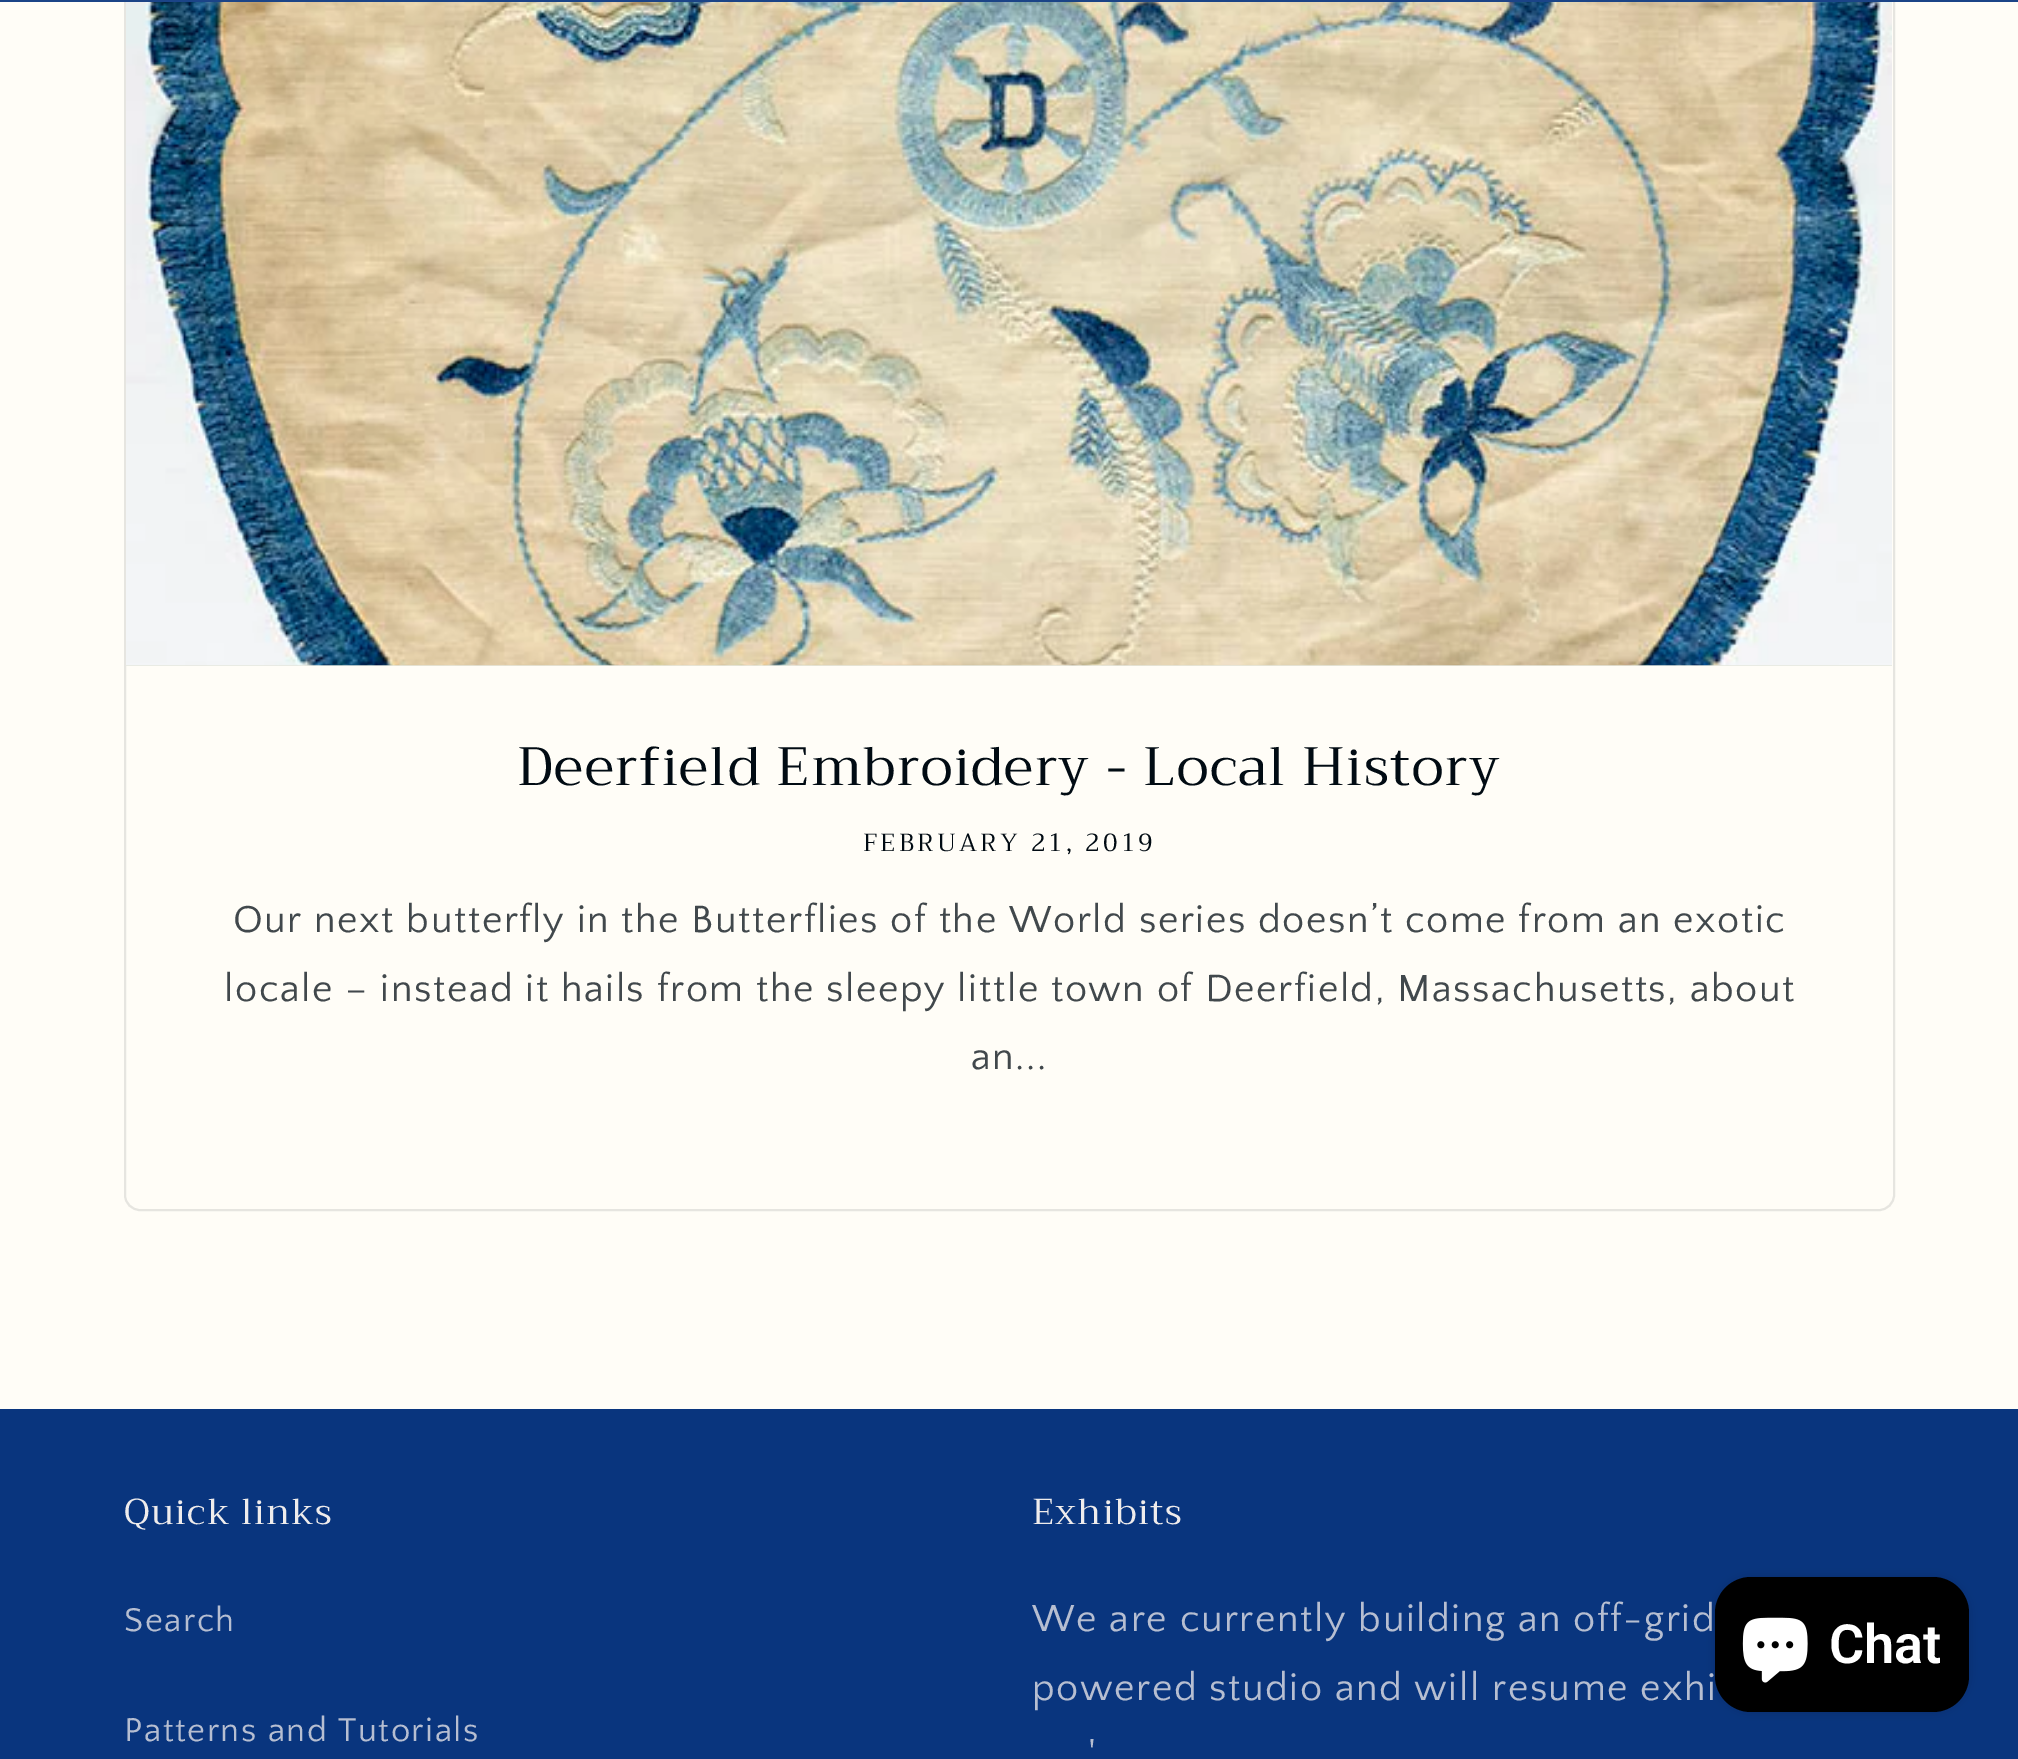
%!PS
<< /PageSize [2018 1759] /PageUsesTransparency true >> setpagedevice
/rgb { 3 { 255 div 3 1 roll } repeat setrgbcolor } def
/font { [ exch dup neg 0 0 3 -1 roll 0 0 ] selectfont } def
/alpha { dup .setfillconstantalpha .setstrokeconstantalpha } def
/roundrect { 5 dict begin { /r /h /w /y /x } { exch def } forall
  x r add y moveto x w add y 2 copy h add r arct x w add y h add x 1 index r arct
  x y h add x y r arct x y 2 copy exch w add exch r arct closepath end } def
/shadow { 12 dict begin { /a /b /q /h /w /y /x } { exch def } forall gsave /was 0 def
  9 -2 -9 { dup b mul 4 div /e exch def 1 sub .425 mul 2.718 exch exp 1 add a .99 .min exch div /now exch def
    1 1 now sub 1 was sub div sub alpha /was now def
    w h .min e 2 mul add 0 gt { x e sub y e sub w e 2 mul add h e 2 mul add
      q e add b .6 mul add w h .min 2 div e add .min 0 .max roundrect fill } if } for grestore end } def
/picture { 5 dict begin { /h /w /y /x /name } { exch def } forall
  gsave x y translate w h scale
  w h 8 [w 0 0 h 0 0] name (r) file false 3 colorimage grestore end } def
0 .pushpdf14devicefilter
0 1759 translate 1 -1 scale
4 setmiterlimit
255 253 247 rgb
0 0 2018 1759 rectfill
230 229 224 rgb
2 setlinewidth
125 -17 1769 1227 15 roundrect stroke
27 68 135 rgb
0 0 2018 2 rectfill
230 231 222 rgb
126 665 1766 1 rectfill
(img/1.rgb) 126 2 1766 664 picture
9 53 126 rgb
0 1409 2018 350 rectfill
0 0 0 rgb
1715 1577 254 135 36 5.5 0.15 shadow
1715 1577 254 135 36 roundrect fill
(img/2.rgb) 1742 1617 66 66 picture
/Trirong-Regular 54 font
1 11 19 rgb
517 785 moveto 1.35 0 (Deerfield Embroidery - Local History) ashow
/Trirong-Regular 24.75 font
863 851 moveto 3.25 0 (FEBRUARY 21, 2019) ashow
/QuattrocentoSans-Regular 39.6 font
65 72 76 rgb
233 932 moveto 1.5 0 (Our next butterfly in the Butterflies of the World series doesn’t come from an exotic) ashow
224 1001 moveto 1.5 0 (locale – instead it hails from the sleepy little town of Deerfield, Massachusetts, about) ashow
971 1069 moveto 1.5 0 (an...) ashow
/Trirong-Regular 36 font
239 236 236 rgb
124 1524 moveto 1.35 0 (Quick links) ashow
/QuattrocentoSans-Regular 34.6 font
182 190 209 rgb
124 1631 moveto 1.5 0 (Search) ashow
124 1741 moveto 1.5 0 (Patterns and Tutorials) ashow
/Trirong-Regular 36 font
239 236 236 rgb
1032 1524 moveto 1.35 0 (Exhibits) ashow
/QuattrocentoSans-Regular 39.6 font
182 190 209 rgb
1032 1631 moveto 1.5 0 (We are currently building an off-grid) ashow
1032 1700 moveto 1.5 0 (powered studio and will resume exhi) ashow
1088 1768 moveto 1.5 0 (') ashow
/Roboto-SemiBold 54 font
255 255 255 rgb
1829 1663 moveto (Chat) show
.poppdf14devicefilter showpage
